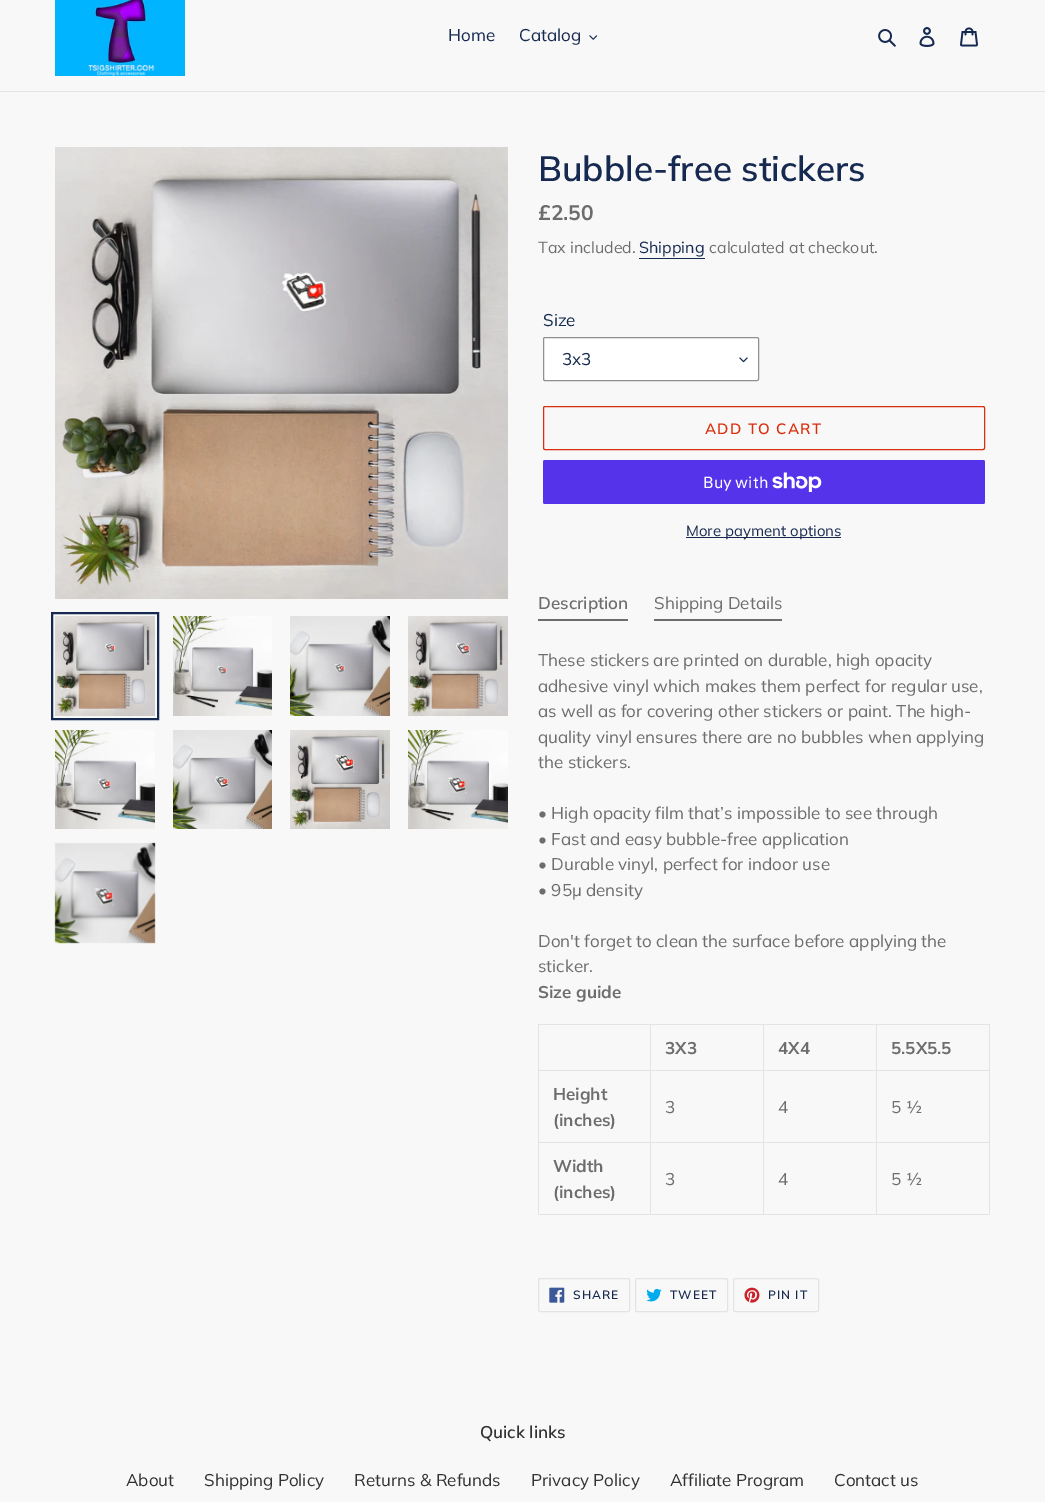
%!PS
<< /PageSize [1045 1502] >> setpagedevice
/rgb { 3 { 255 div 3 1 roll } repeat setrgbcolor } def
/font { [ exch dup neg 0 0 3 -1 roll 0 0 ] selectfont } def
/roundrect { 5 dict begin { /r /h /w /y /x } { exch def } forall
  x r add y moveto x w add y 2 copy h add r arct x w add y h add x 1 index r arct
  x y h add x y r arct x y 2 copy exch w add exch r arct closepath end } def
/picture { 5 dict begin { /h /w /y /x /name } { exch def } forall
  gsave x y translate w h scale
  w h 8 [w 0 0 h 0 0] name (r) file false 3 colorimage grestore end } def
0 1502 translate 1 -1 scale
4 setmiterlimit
248 248 248 rgb
0 0 1045 1502 rectfill
228 228 228 rgb
0 91 1045 1 rectfill
(img/1.rgb) 55 0 130 76 picture
(img/2.rgb) 589 35 8 5 picture
(img/3.rgb) 878 29 18 18 picture
(img/4.rgb) 919 27 16 20 picture
(img/5.rgb) 960 27 18 20 picture
(img/6.rgb) 55 147 453 452 picture
22 41 80 rgb
2 setlinewidth
52 613 106 106 rectstroke
(img/7.rgb) 55 616 100 100 picture
(img/8.rgb) 173 616 99 100 picture
(img/9.rgb) 290 616 100 100 picture
(img/10.rgb) 408 616 100 100 picture
(img/11.rgb) 55 730 100 99 picture
(img/12.rgb) 173 730 99 99 picture
(img/13.rgb) 290 730 100 99 picture
(img/14.rgb) 408 730 100 99 picture
(img/15.rgb) 54 842 102 102 picture
639 258 66 1 rectfill
255 255 255 rgb
543 337 216 44 2 roundrect fill
(img/16.rgb) 739 357 9 6 picture
144 144 144 rgb
1 setlinewidth
543.5 337.5 215 43 1.5 roundrect stroke
218 47 12 rgb
543.5 406.5 441 43 1.5 roundrect stroke
84 51 235 rgb
543 460 442 44 2 roundrect fill
(img/17.rgb) 772 472 50 20 picture
[
  [686 537 155 1 22 41 80]
  [538 619 90 2 109 109 109]
  [654 619 128 2 109 109 109]
  [876 1024 114 1 228 228 228]
  [876 1070 114 1 228 228 228]
  [876 1142 114 1 228 228 228]
  [989 1142 1 73 228 228 228]
  [876 1214 114 1 228 228 228]
  [876 1142 1 73 228 228 228]
  [763 1142 114 1 228 228 228]
  [876 1070 1 73 228 228 228]
  [763 1070 114 1 228 228 228]
  [876 1024 1 47 228 228 228]
  [763 1024 114 1 228 228 228]
  [763 1214 114 1 228 228 228]
  [763 1142 1 73 228 228 228]
  [650 1142 114 1 228 228 228]
  [763 1070 1 73 228 228 228]
  [650 1070 114 1 228 228 228]
  [763 1024 1 47 228 228 228]
  [650 1024 114 1 228 228 228]
  [650 1214 114 1 228 228 228]
  [650 1142 1 73 228 228 228]
  [538 1142 113 1 228 228 228]
  [650 1070 1 73 228 228 228]
  [538 1070 113 1 228 228 228]
  [650 1024 1 47 228 228 228]
  [538 1024 113 1 228 228 228]
  [538 1214 113 1 228 228 228]
  [538 1142 1 73 228 228 228]
  [538 1070 1 73 228 228 228]
  [538 1024 1 47 228 228 228]
  [989 1070 1 73 228 228 228]
  [989 1024 1 47 228 228 228]
] { aload pop rgb rectfill } forall
538.5 1278.5 91 33 1.5 roundrect stroke
(img/18.rgb) 549 1287 16 16 picture
635.5 1278.5 92 33 1.5 roundrect stroke
(img/19.rgb) 646 1288 16 14 picture
733.5 1278.5 85 33 1.5 roundrect stroke
(img/20.rgb) 744 1287 16 16 picture
/Muli-Regular 17 font
22 41 80 rgb
448 41 moveto (Home) show
519 41 moveto (Catalog) show
/Muli-SemiBold 35 font
538 181 moveto (Bubble-free stickers) show
/Muli-Bold 21 font
109 109 109 rgb
538 220 moveto (£2.50) show
/Muli-Regular 16 font
538 253 moveto (Tax included.) show
22 41 80 rgb
639 253 moveto (Shipping) show
109 109 109 rgb
709 253 moveto (calculated at checkout.) show
/Muli-Regular 17 font
22 41 80 rgb
543 326 moveto (Size) show
562 365 moveto (3x3) show
/Muli-SemiBold 15 font
218 47 12 rgb
705 434 moveto 1.25 0 (ADD TO CART) ashow
/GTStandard-Regular 16 font
255 255 255 rgb
703 488 moveto (Buy with) show
/Muli-Regular 15 font
22 41 80 rgb
686 536 moveto (More payment options) show
/Muli-SemiBold 17 font
109 109 109 rgb
538 609 moveto (Description) show
/Muli-Regular 17 font
[
  [(Shipping Details) 654 609]
  [(These stickers are printed on durable, high opacity) 538 666]
  [(adhesive vinyl which makes them perfect for regular use,) 538 692]
  [(as well as for covering other stickers or paint. The high-) 538 717]
  [(quality vinyl ensures there are no bubbles when applying) 538 743]
  [(the stickers.) 538 768]
  [(• High opacity film that’s impossible to see through) 538 819]
  [(• Fast and easy bubble-free application) 538 845]
  [(• Durable vinyl, perfect for indoor use) 538 870]
  [(• 95µ density) 538 896]
  [(Don't forget to clean the surface before applying the) 538 947]
  [(sticker.) 538 972]
] { aload pop moveto show } forall
/Muli-Bold 17 font
[
  [(Size guide) 538 998]
  [(3X3) 665 1054]
  [(4X4) 778 1054]
  [(5.5X5.5) 891 1054]
  [(Height) 553 1100]
  [(\(inches\)) 553 1126]
] { aload pop moveto show } forall
/Muli-Regular 17 font
[
  [(3) 665 1113]
  [(4) 778 1113]
  [(5 ½) 891 1113]
] { aload pop moveto show } forall
/Muli-Bold 17 font
553 1172 moveto (Width) show
553 1198 moveto (\(inches\)) show
/Muli-Regular 17 font
[
  [(3) 665 1185]
  [(4) 778 1185]
  [(5 ½) 891 1185]
] { aload pop moveto show } forall
/Muli-SemiBold 12 font
22 41 80 rgb
573 1299 moveto 1 0 (SHARE) ashow
670 1299 moveto 1 0 (TWEET) ashow
768 1299 moveto 1 0 (PIN IT) ashow
/Muli-SemiBold 17 font
51 50 50 rgb
480 1438 moveto (Quick links) show
/Muli-Regular 17 font
[
  [(About) 126 1486]
  [(Shipping Policy) 204 1486]
  [(Returns & Refunds) 354 1486]
  [(Privacy Policy) 531 1486]
  [(Affiliate Program) 670 1486]
  [(Contact us) 834 1486]
] { aload pop moveto show } forall
showpage
